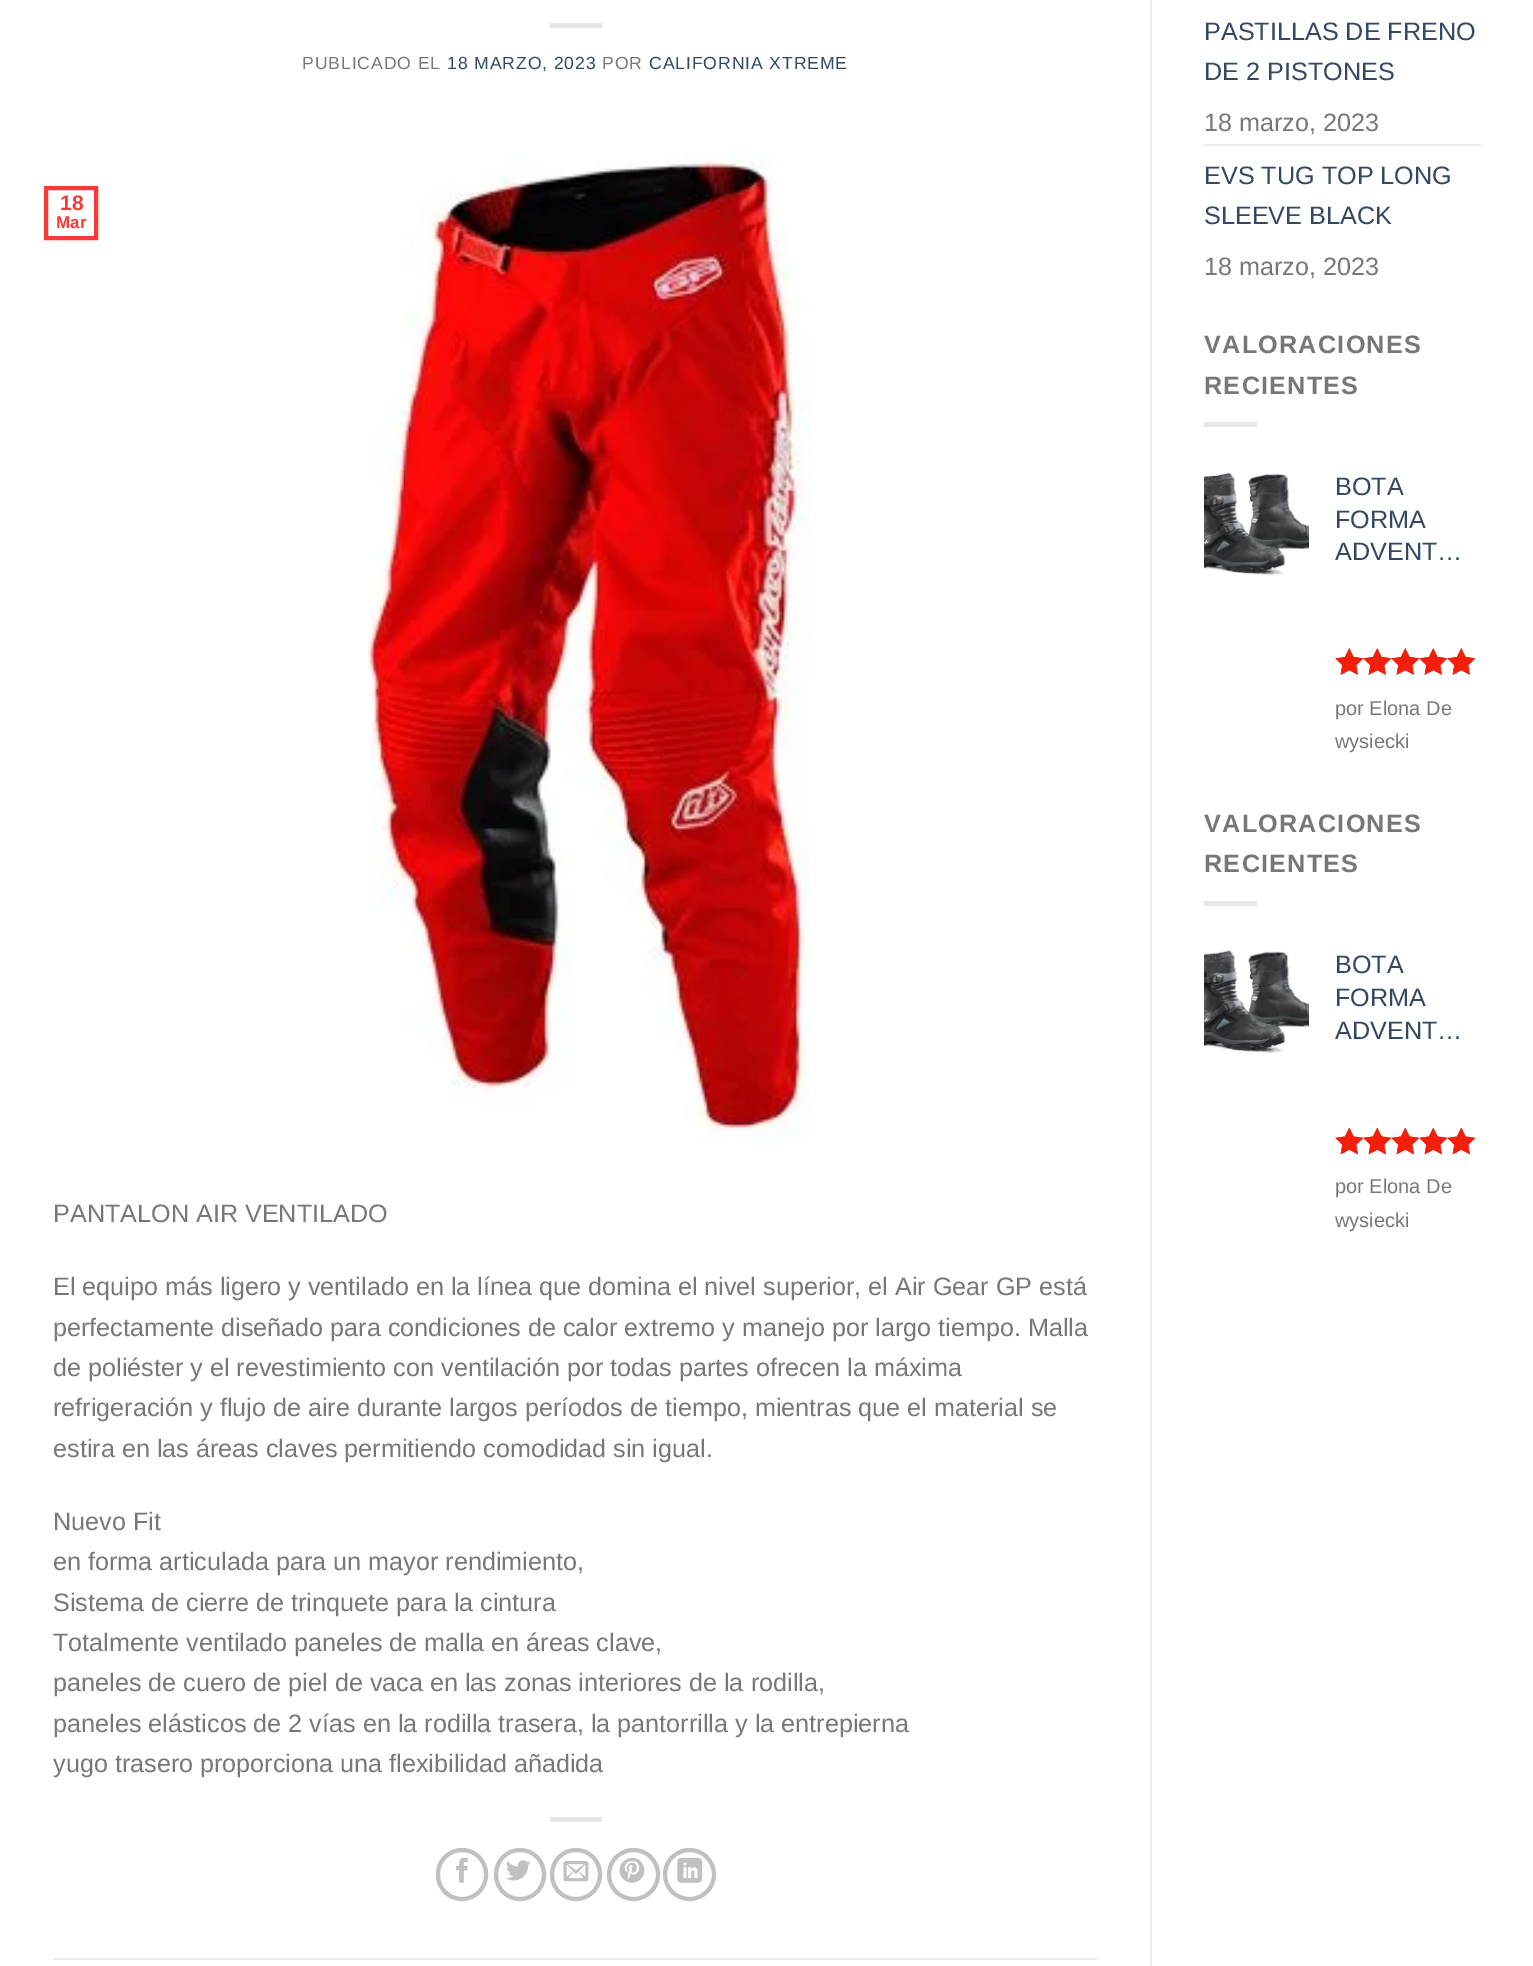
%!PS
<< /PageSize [1533 1966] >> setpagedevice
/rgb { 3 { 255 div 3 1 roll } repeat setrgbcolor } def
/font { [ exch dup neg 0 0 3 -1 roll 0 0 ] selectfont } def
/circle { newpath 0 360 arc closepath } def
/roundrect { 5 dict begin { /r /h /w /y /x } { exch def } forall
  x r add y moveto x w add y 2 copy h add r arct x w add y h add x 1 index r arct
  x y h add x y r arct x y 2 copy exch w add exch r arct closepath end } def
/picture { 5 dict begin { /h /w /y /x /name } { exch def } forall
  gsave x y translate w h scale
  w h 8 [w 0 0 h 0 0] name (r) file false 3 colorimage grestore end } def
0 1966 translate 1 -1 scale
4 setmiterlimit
255 255 255 rgb
0 0 1533 1966 rectfill
230 230 230 rgb
550 23 52 5 rectfill
249 56 56 rgb
4 setlinewidth
46 188 50 50 rectstroke
(img/1.rgb) 368 153 442 988 picture
230 230 230 rgb
550 1817 52 5 rectfill
192 192 192 rgb
438 1850 48 49 24 roundrect stroke
(img/2.rgb) 456 1857 12 26 picture
496 1850 48 49 24 roundrect stroke
(img/3.rgb) 506 1860 25 21 picture
552 1850 48 49 24 roundrect stroke
(img/4.rgb) 563 1861 26 21 picture
633.5 1874.5 24.5 circle stroke
(img/5.rgb) 619 1857 26 26 picture
689.5 1874.5 24.5 circle stroke
(img/6.rgb) 677 1857 26 26 picture
[
  [53 1958 1044 2 236 236 236]
  [1150 0 2 1966 236 236 236]
  [1204 144 277 2 236 236 236]
  [1204 422 53 5 230 230 230]
] { aload pop rgb rectfill } forall
(img/7.rgb) 1204 473 105 103 picture
(img/8.rgb) 1335 648 141 27 picture
(img/9.rgb) 1335 648 141 27 picture
1204 901 53 5 rectfill
(img/10.rgb) 1204 950 105 103 picture
(img/11.rgb) 1335 1127 141 28 picture
(img/12.rgb) 1335 1127 141 28 picture
/LiberationSans-Regular 17.6 font
119 119 119 rgb
302 69 moveto 0.9 0 (PUBLICADO EL) ashow
51 72 98 rgb
447 69 moveto 0.9 0 (18 MARZO, 2023) ashow
119 119 119 rgb
602 69 moveto 0.9 0 (POR) ashow
51 72 98 rgb
649 69 moveto 0.9 0 (CALIFORNIA XTREME) ashow
/LiberationSans-Bold 21 font
249 56 56 rgb
60 210 moveto (18) show
/LiberationSans-Bold 17 font
56 228 moveto (Mar) show
/LiberationSans-Regular 25.2 font
119 119 119 rgb
[
  [(PANTALON AIR VENTILADO) 53 1222]
  [(El equipo más ligero y ventilado en la línea que domina el nivel superior, el Air Gear GP está) 53 1295]
  [(perfectamente diseñado para condiciones de calor extremo y manejo por largo tiempo. Malla) 53 1336]
  [(de poliéster y el revestimiento con ventilación por todas partes ofrecen la máxima) 53 1376]
  [(refrigeración y flujo de aire durante largos períodos de tiempo, mientras que el material se) 53 1416]
  [(estira en las áreas claves permitiendo comodidad sin igual.) 53 1457]
  [(Nuevo Fit) 53 1530]
  [(en forma articulada para un mayor rendimiento,) 53 1570]
  [(Sistema de cierre de trinquete para la cintura) 53 1611]
  [(Totalmente ventilado paneles de malla en áreas clave,) 53 1651]
  [(paneles de cuero de piel de vaca en las zonas interiores de la rodilla,) 53 1691]
  [(paneles elásticos de 2 vías en la rodilla trasera, la pantorrilla y la entrepierna) 53 1732]
  [(yugo trasero proporciona una flexibilidad añadida) 53 1772]
] { aload pop moveto show } forall
51 72 98 rgb
1204 40 moveto (PASTILLAS DE FRENO) show
1204 80 moveto (DE 2 PISTONES) show
119 119 119 rgb
1204 131 moveto (18 marzo, 2023) show
51 72 98 rgb
1204 184 moveto (EVS TUG TOP LONG) show
1204 224 moveto (SLEEVE BLACK) show
119 119 119 rgb
1204 275 moveto (18 marzo, 2023) show
/LiberationSans-Bold 25.2 font
1204 353 moveto 1.25 0 (VALORACIONES) ashow
1204 394 moveto 1.25 0 (RECIENTES) ashow
/LiberationSans-Regular 25.2 font
51 72 98 rgb
[
  [(BOTA) 1335 495]
  [(FORMA) 1335 528]
  [(ADVENT…) 1335 560]
] { aload pop moveto show } forall
/LiberationSans-Regular 20 font
119 119 119 rgb
1335 715 moveto (por Elona De) show
1335 748 moveto (wysiecki) show
/LiberationSans-Bold 25.2 font
1204 832 moveto 1.25 0 (VALORACIONES) ashow
1204 872 moveto 1.25 0 (RECIENTES) ashow
/LiberationSans-Regular 25.2 font
51 72 98 rgb
[
  [(BOTA) 1335 973]
  [(FORMA) 1335 1006]
  [(ADVENT…) 1335 1039]
] { aload pop moveto show } forall
/LiberationSans-Regular 20 font
119 119 119 rgb
1335 1193 moveto (por Elona De) show
1335 1227 moveto (wysiecki) show
showpage
